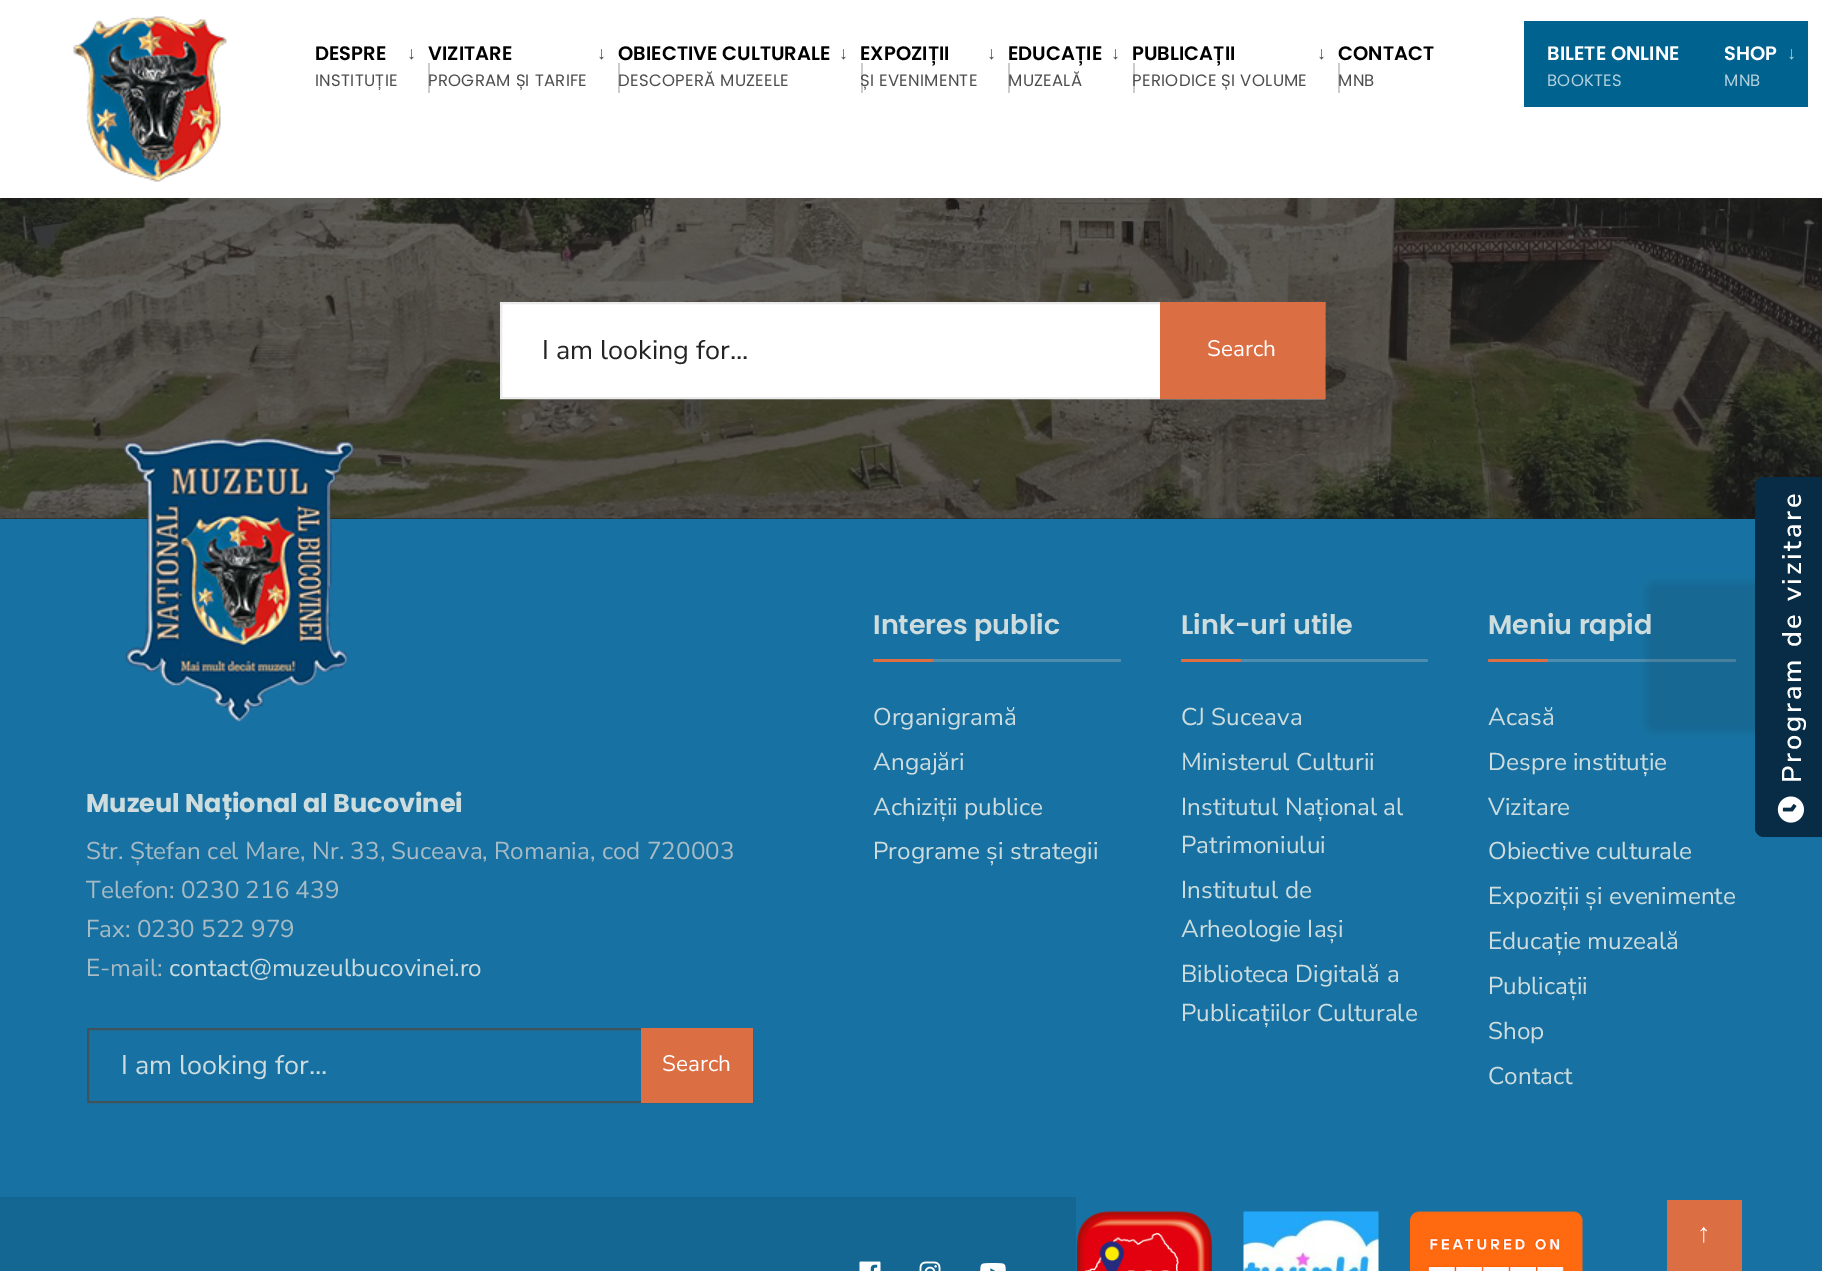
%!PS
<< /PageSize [1822 1271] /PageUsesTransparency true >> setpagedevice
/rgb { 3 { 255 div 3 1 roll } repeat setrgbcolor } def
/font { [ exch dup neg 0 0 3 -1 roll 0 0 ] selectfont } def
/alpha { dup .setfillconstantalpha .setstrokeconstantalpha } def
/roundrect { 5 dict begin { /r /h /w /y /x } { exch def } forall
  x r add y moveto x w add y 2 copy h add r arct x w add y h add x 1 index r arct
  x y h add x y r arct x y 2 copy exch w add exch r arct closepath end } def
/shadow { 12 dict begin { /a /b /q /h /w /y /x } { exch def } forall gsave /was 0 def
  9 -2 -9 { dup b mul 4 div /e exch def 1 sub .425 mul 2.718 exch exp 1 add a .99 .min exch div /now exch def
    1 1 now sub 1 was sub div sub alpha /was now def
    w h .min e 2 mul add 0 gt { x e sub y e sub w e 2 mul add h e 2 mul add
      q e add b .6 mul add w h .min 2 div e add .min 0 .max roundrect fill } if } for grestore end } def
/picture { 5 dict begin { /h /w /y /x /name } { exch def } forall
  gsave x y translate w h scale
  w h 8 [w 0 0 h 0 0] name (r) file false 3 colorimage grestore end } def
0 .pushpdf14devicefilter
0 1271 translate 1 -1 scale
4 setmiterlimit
30 30 30 rgb
0 0 1822 1271 rectfill
255 255 255 rgb
0 0 1822 198 rectfill
(img/1.rgb) 73 16 154 166 picture
[
  [428 63 2 30 204 204 204]
  [618 63 2 30 204 204 204]
  [861 63 2 30 204 204 204]
  [1008 63 2 30 204 204 204]
  [1133 63 2 30 204 204 204]
  [1338 63 2 30 204 204 204]
  [1524 21 284 86 0 98 143]
] { aload pop rgb rectfill } forall
(img/2.rgb) 0 198 1822 321 picture
255 255 255 rgb
502 304 658 93 rectfill
234 234 234 rgb
2 setlinewidth
501 303 823 95 rectstroke
219 110 67 rgb
1160 302 165 97 rectfill
23 114 163 rgb
0 519 1822 752 rectfill
(img/3.rgb) 124 437 231 285 picture
64 83 91 rgb
88 1029 664 73 rectstroke
219 110 67 rgb
641 1028 112 75 rectfill
77 141 175 rgb
930 659 191 3 1.5 roundrect fill
219 110 67 rgb
873 659 60 3 1.5 roundrect fill
77 141 175 rgb
1238 659 190 3 1.5 roundrect fill
219 110 67 rgb
1181 659 60 3 1.5 roundrect fill
77 141 175 rgb
1545 659 191 3 1.5 roundrect fill
219 110 67 rgb
1488 659 60 3 1.5 roundrect fill
21 103 147 rgb
0 1197 1076 74 rectfill
(img/4.rgb) 859 1261 22 10 picture
(img/5.rgb) 919 1261 22 10 picture
(img/6.rgb) 980 1263 26 8 picture
(img/7.rgb) 1077 1211 135 60 picture
(img/8.rgb) 1243 1211 136 60 picture
(img/9.rgb) 1410 1211 173 60 picture
219 110 67 rgb
1667 1200 75 71 rectfill
0 0 0 rgb
1646 582 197 150 9 4 0.1 shadow
8 44 69 rgb
1755 828 moveto 1755 486 lineto 1755 481 1759 477 1764 477 curveto 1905 477 lineto 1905 837 lineto 1764 837 lineto 1759 837 1755 833 1755 828 curveto closepath fill
(img/10.rgb) 1777 796 27 27 picture
/Poppins-SemiBold 19.5 font
0 0 0 rgb
315 60 moveto (DESPRE) show
/LiberationSans-Regular 18 font
77 77 77 rgb
407 59 moveto (↓) show
/Poppins-Regular 16.5 font
315 86 moveto 0.3 0 (INSTITUȚIE) ashow
/Poppins-SemiBold 19.5 font
0 0 0 rgb
428 60 moveto (VIZITARE) show
/LiberationSans-Regular 18 font
77 77 77 rgb
597 59 moveto (↓) show
/Poppins-Regular 16.5 font
428 86 moveto 0.3 0 (PROGRAM ȘI TARIFE) ashow
/Poppins-SemiBold 19.5 font
0 0 0 rgb
618 60 moveto (OBIECTIVE CULTURALE) show
/LiberationSans-Regular 18 font
77 77 77 rgb
839 59 moveto (↓) show
/Poppins-Regular 16.5 font
618 86 moveto 0.3 0 (DESCOPERĂ MUZEELE) ashow
/Poppins-SemiBold 19.5 font
0 0 0 rgb
860 60 moveto (EXPOZIȚII) show
/LiberationSans-Regular 18 font
77 77 77 rgb
987 59 moveto (↓) show
/Poppins-Regular 16.5 font
860 86 moveto 0.3 0 (ȘI EVENIMENTE) ashow
/Poppins-SemiBold 19.5 font
0 0 0 rgb
1008 60 moveto (EDUCAȚIE) show
/LiberationSans-Regular 18 font
77 77 77 rgb
1111 59 moveto (↓) show
/Poppins-Regular 16.5 font
1008 86 moveto 0.3 0 (MUZEALĂ) ashow
/Poppins-SemiBold 19.5 font
0 0 0 rgb
1132 60 moveto (PUBLICAȚII) show
/LiberationSans-Regular 18 font
77 77 77 rgb
1317 59 moveto (↓) show
/Poppins-Regular 16.5 font
1132 86 moveto 0.3 0 (PERIODICE ȘI VOLUME) ashow
/Poppins-SemiBold 19.5 font
0 0 0 rgb
1338 60 moveto (CONTACT) show
/Poppins-Regular 16.5 font
77 77 77 rgb
1338 86 moveto 0.3 0 (MNB) ashow
/Poppins-SemiBold 19.5 font
255 255 255 rgb
1547 60 moveto (BILETE ONLINE) show
/Poppins-Regular 16.5 font
179 208 221 rgb
1547 86 moveto 0.3 0 (BOOKTES) ashow
/Poppins-SemiBold 19.5 font
255 255 255 rgb
1724 60 moveto (SHOP) show
/LiberationSans-Regular 18 font
179 208 221 rgb
1787 59 moveto (↓) show
/Poppins-Regular 16.5 font
1724 86 moveto 0.3 0 (MNB) ashow
/NunitoSans-Regular 27 font
35 35 35 rgb
542 359 moveto (I am looking for...) show
/NunitoSans-Regular 22.5 font
255 255 255 rgb
1207 356 moveto (Search) show
/Poppins-Bold 25.5 font
206 220 221 rgb
86 812 moveto (Muzeul Național al Bucovinei) show
/NunitoSans-Regular 24.3 font
168 187 196 rgb
[
  [(Str. Ștefan cel Mare, Nr. 33, Suceava, Romania, cod 720003) 86 859]
  [(Telefon: 0230 216 439) 86 898]
  [(Fax: 0230 522 979) 86 937]
  [(E-mail:) 86 976]
] { aload pop moveto show } forall
206 220 221 rgb
169 976 moveto (contact@muzeulbucovinei.ro) show
/NunitoSans-Regular 27 font
121 1074 moveto (I am looking for...) show
/NunitoSans-Regular 22.5 font
255 255 255 rgb
662 1071 moveto (Search) show
/Poppins-SemiBold 27 font
206 220 221 rgb
873 634 moveto (Interes public) show
/NunitoSans-Regular 24.3 font
[
  [(Organigramă) 873 725]
  [(Angajări) 873 770]
  [(Achiziții publice) 873 815]
  [(Programe și strategii) 873 859]
] { aload pop moveto show } forall
/Poppins-SemiBold 27 font
1181 634 moveto (Link-uri utile) show
/NunitoSans-Regular 24.3 font
[
  [(CJ Suceava) 1181 725]
  [(Ministerul Culturii) 1181 770]
  [(Institutul Național al) 1181 815]
  [(Patrimoniului) 1181 853]
  [(Institutul de) 1181 898]
  [(Arheologie Iași) 1181 937]
  [(Biblioteca Digitală a) 1181 982]
  [(Publicațiilor Culturale) 1181 1021]
] { aload pop moveto show } forall
/Poppins-SemiBold 27 font
1488 634 moveto (Meniu rapid) show
/NunitoSans-Regular 24.3 font
[
  [(Acasă) 1488 725]
  [(Despre instituție) 1488 770]
  [(Vizitare) 1488 815]
  [(Obiective culturale) 1488 859]
  [(Expoziții și evenimente) 1488 904]
  [(Educație muzeală) 1488 949]
  [(Publicații) 1488 994]
  [(Shop) 1488 1039]
  [(Contact) 1488 1084]
] { aload pop moveto show } forall
/LiberationSerif-Regular 27 font
255 255 255 rgb
1697 1242 moveto (↑) show
/NunitoSans-SemiBold 27 font
gsave 1801 783 translate -90 rotate 0 0 moveto 2.75 0 (Program de vizitare) ashow grestore
.poppdf14devicefilter showpage
